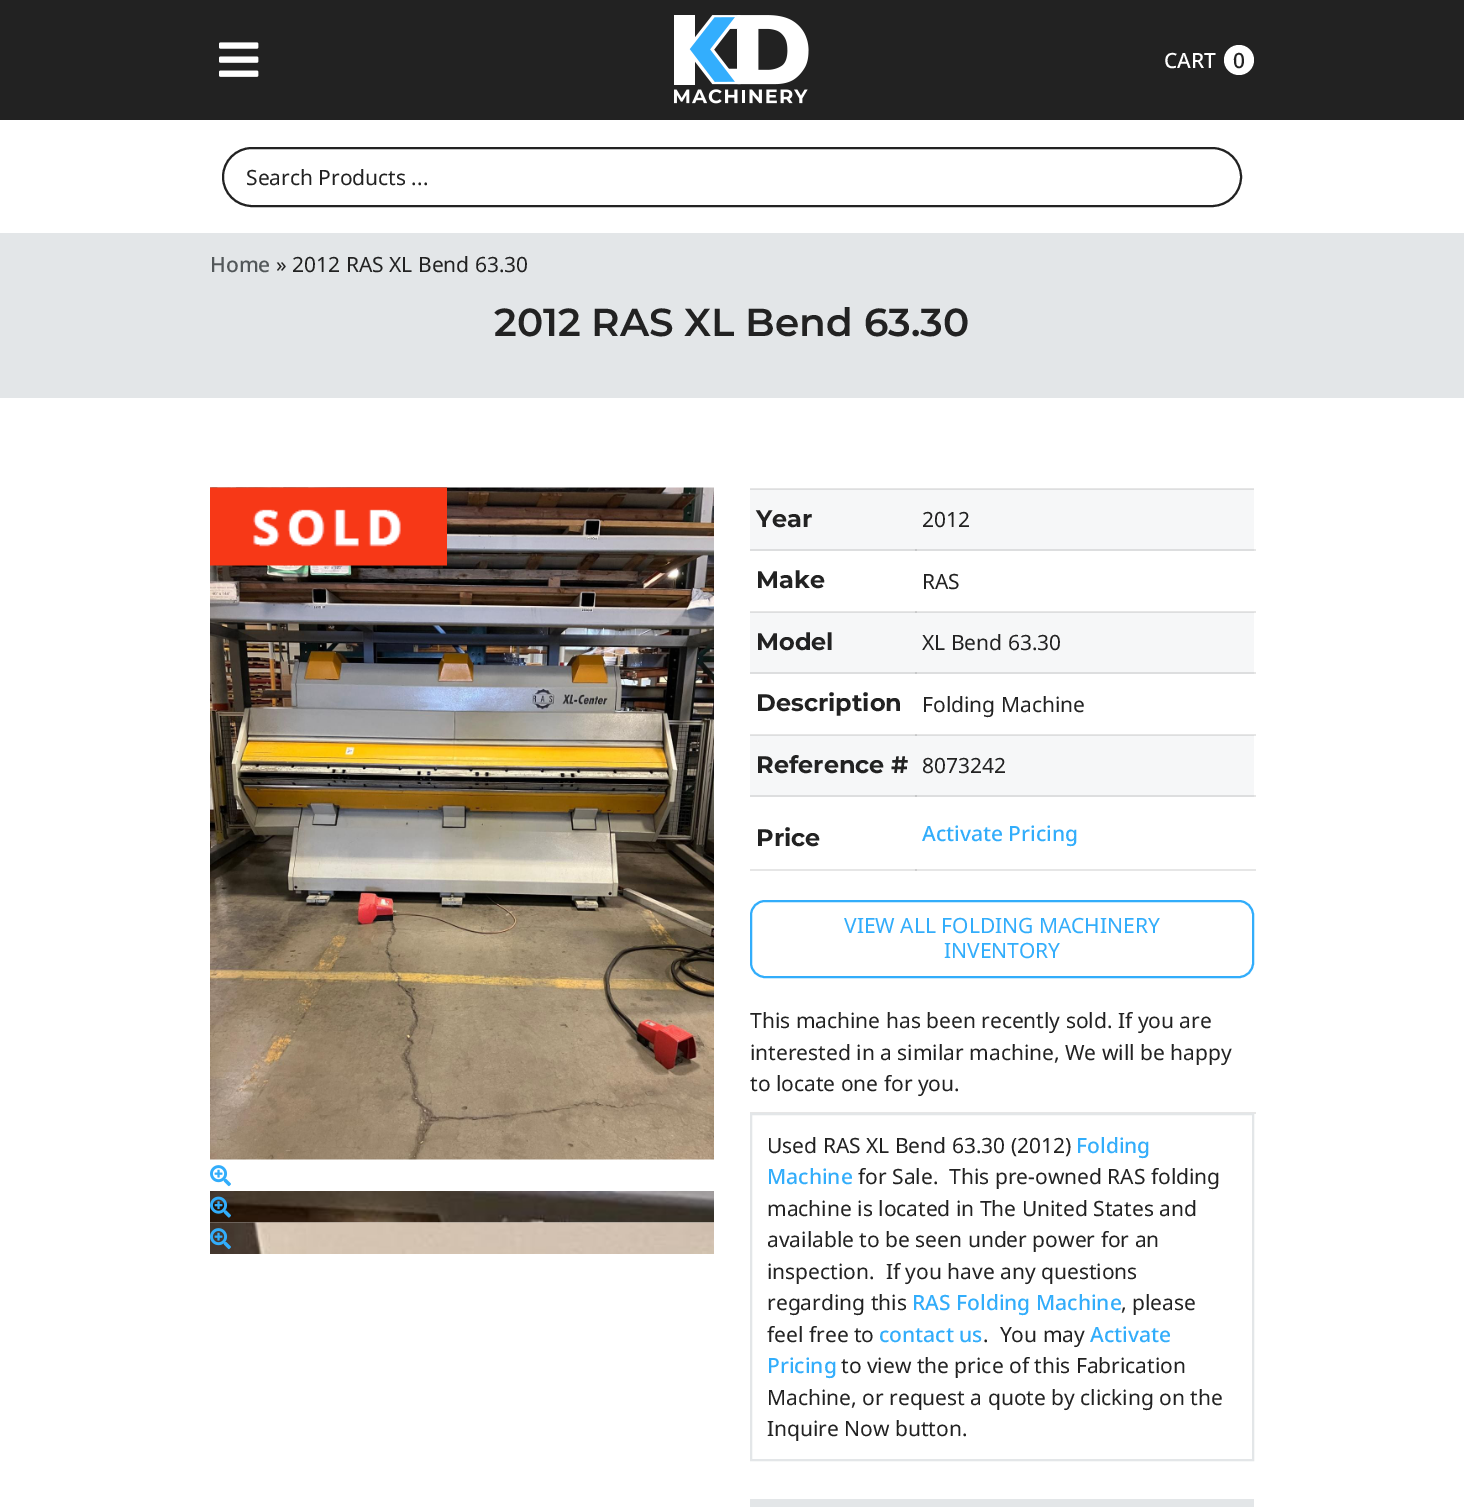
%!PS
<< /PageSize [1464 1507] >> setpagedevice
/rgb { 3 { 255 div 3 1 roll } repeat setrgbcolor } def
/font { [ exch dup neg 0 0 3 -1 roll 0 0 ] selectfont } def
/circle { newpath 0 360 arc closepath } def
/roundrect { 5 dict begin { /r /h /w /y /x } { exch def } forall
  x r add y moveto x w add y 2 copy h add r arct x w add y h add x 1 index r arct
  x y h add x y r arct x y 2 copy exch w add exch r arct closepath end } def
/picture { 5 dict begin { /h /w /y /x /name } { exch def } forall
  gsave x y translate w h scale
  w h 8 [w 0 0 h 0 0] name (r) file false 3 colorimage grestore end } def
0 1507 translate 1 -1 scale
4 setmiterlimit
255 255 255 rgb
0 0 1464 1507 rectfill
[
  [1254 549 2 2 230 230 230]
  [750 611 167 1 230 230 230]
  [915 611 341 2 230 230 230]
  [915 611 2 1 207 207 207]
  [1254 672 2 2 230 230 230]
  [750 734 167 1 230 230 230]
  [915 734 341 2 230 230 230]
  [915 734 2 1 207 207 207]
  [1254 795 2 2 230 230 230]
  [750 869 506 2 230 230 230]
  [750 488 504 1 230 230 230]
  [0 0 1464 120 34 34 34]
] { aload pop rgb rectfill } forall
(img/1.rgb) 219 42 40 35 picture
(img/2.rgb) 674 15 135 89 picture
255 255 255 rgb
1239 60 15 circle fill
34 34 34 rgb
2 setlinewidth
223 148 1018 58 29 roundrect stroke
227 230 232 rgb
0 233 1464 165 rectfill
(img/3.rgb) 210 487 504 673 picture
(img/4.rgb) 210 1165 21 22 picture
(img/5.rgb) 210 1191 504 32 picture
(img/6.rgb) 210 1196 21 22 picture
(img/7.rgb) 210 1222 504 32 picture
(img/8.rgb) 210 1228 21 22 picture
(img/9.rgb) 210 487 237 79 picture
[
  [750 490 504 59 246 247 248]
  [750 549 504 2 221 222 223]
  [915 549 2 2 199 200 201]
  [750 489 504 1 221 222 223]
  [750 613 504 59 246 247 248]
  [750 612 504 1 221 222 223]
  [915 612 2 1 199 200 201]
  [750 672 504 2 221 222 223]
  [915 672 2 2 199 200 201]
  [750 736 504 59 246 247 248]
  [750 735 504 1 221 222 223]
  [915 735 2 1 199 200 201]
  [750 795 504 2 221 222 223]
  [915 795 2 2 199 200 201]
  [915 869 2 2 207 207 207]
  [750 1112 506 2 230 230 230]
] { aload pop rgb rectfill } forall
50 173 251 rgb
751 901 502 76 14 roundrect stroke
227 230 232 rgb
751 1114 502 346 rectstroke
750 1499 504 8 rectfill
/NotoSans-Medium 21 font
255 255 255 rgb
1164 68 moveto (CART) show
34 34 34 rgb
1233 68 moveto (0) show
/NotoSans-Regular 21 font
246 185 moveto (Search Products ...) show
/NotoSans-Medium 21 font
82 87 89 rgb
210 272 moveto (Home) show
/NotoSans-Regular 21 font
34 34 34 rgb
276 272 moveto (» 2012 RAS XL Bend 63.30) show
/Montserrat-SemiBold 39 font
494 336 moveto (2012 RAS XL Bend 63.30) show
/Montserrat-Bold 24 font
756 527 moveto (Year) show
/NotoSans-Regular 21 font
922 527 moveto (2012) show
/Montserrat-Bold 24 font
756 588 moveto (Make) show
/NotoSans-Regular 21 font
922 589 moveto (RAS) show
/Montserrat-Bold 24 font
756 650 moveto (Model) show
/NotoSans-Regular 21 font
922 650 moveto (XL Bend 63.30) show
/Montserrat-Bold 24 font
756 711 moveto (Description) show
/NotoSans-Regular 21 font
922 712 moveto (Folding Machine) show
/Montserrat-Bold 24 font
756 773 moveto (Reference #) show
/NotoSans-Regular 21 font
922 773 moveto (8073242) show
/Montserrat-Bold 24 font
756 846 moveto (Price) show
/NotoSans-Medium 21 font
50 173 251 rgb
922 841 moveto (Activate Pricing) show
/NotoSans-Regular 21 font
844 933 moveto (VIEW ALL FOLDING MACHINERY) show
944 958 moveto (INVENTORY) show
34 34 34 rgb
[
  [(This machine has been recently sold. If you are) 750 1028]
  [(interested in a similar machine, We will be happy) 750 1060]
  [(to locate one for you.) 750 1091]
  [(Used RAS XL Bend 63.30 \(2012\)) 767 1153]
] { aload pop moveto show } forall
/NotoSans-Medium 21 font
50 173 251 rgb
1076 1153 moveto (Folding) show
767 1184 moveto (Machine) show
/NotoSans-Regular 21 font
34 34 34 rgb
[
  [(for Sale.  This pre-owned RAS folding) 858 1184]
  [(machine is located in The United States and) 767 1216]
  [(available to be seen under power for an) 767 1247]
  [(inspection.  If you have any questions) 767 1279]
  [(regarding this) 767 1310]
] { aload pop moveto show } forall
/NotoSans-Medium 21 font
50 173 251 rgb
912 1310 moveto (RAS Folding Machine) show
/NotoSans-Regular 21 font
34 34 34 rgb
1121 1310 moveto (, please) show
767 1342 moveto (feel free to) show
/NotoSans-Medium 21 font
50 173 251 rgb
879 1342 moveto (contact us) show
/NotoSans-Regular 21 font
34 34 34 rgb
983 1342 moveto (.  You may) show
/NotoSans-Medium 21 font
50 173 251 rgb
1090 1342 moveto (Activate) show
767 1373 moveto (Pricing) show
/NotoSans-Regular 21 font
34 34 34 rgb
[
  [(to view the price of this Fabrication) 841 1373]
  [(Machine, or request a quote by clicking on the) 767 1405]
  [(Inquire Now button.) 767 1436]
] { aload pop moveto show } forall
showpage
